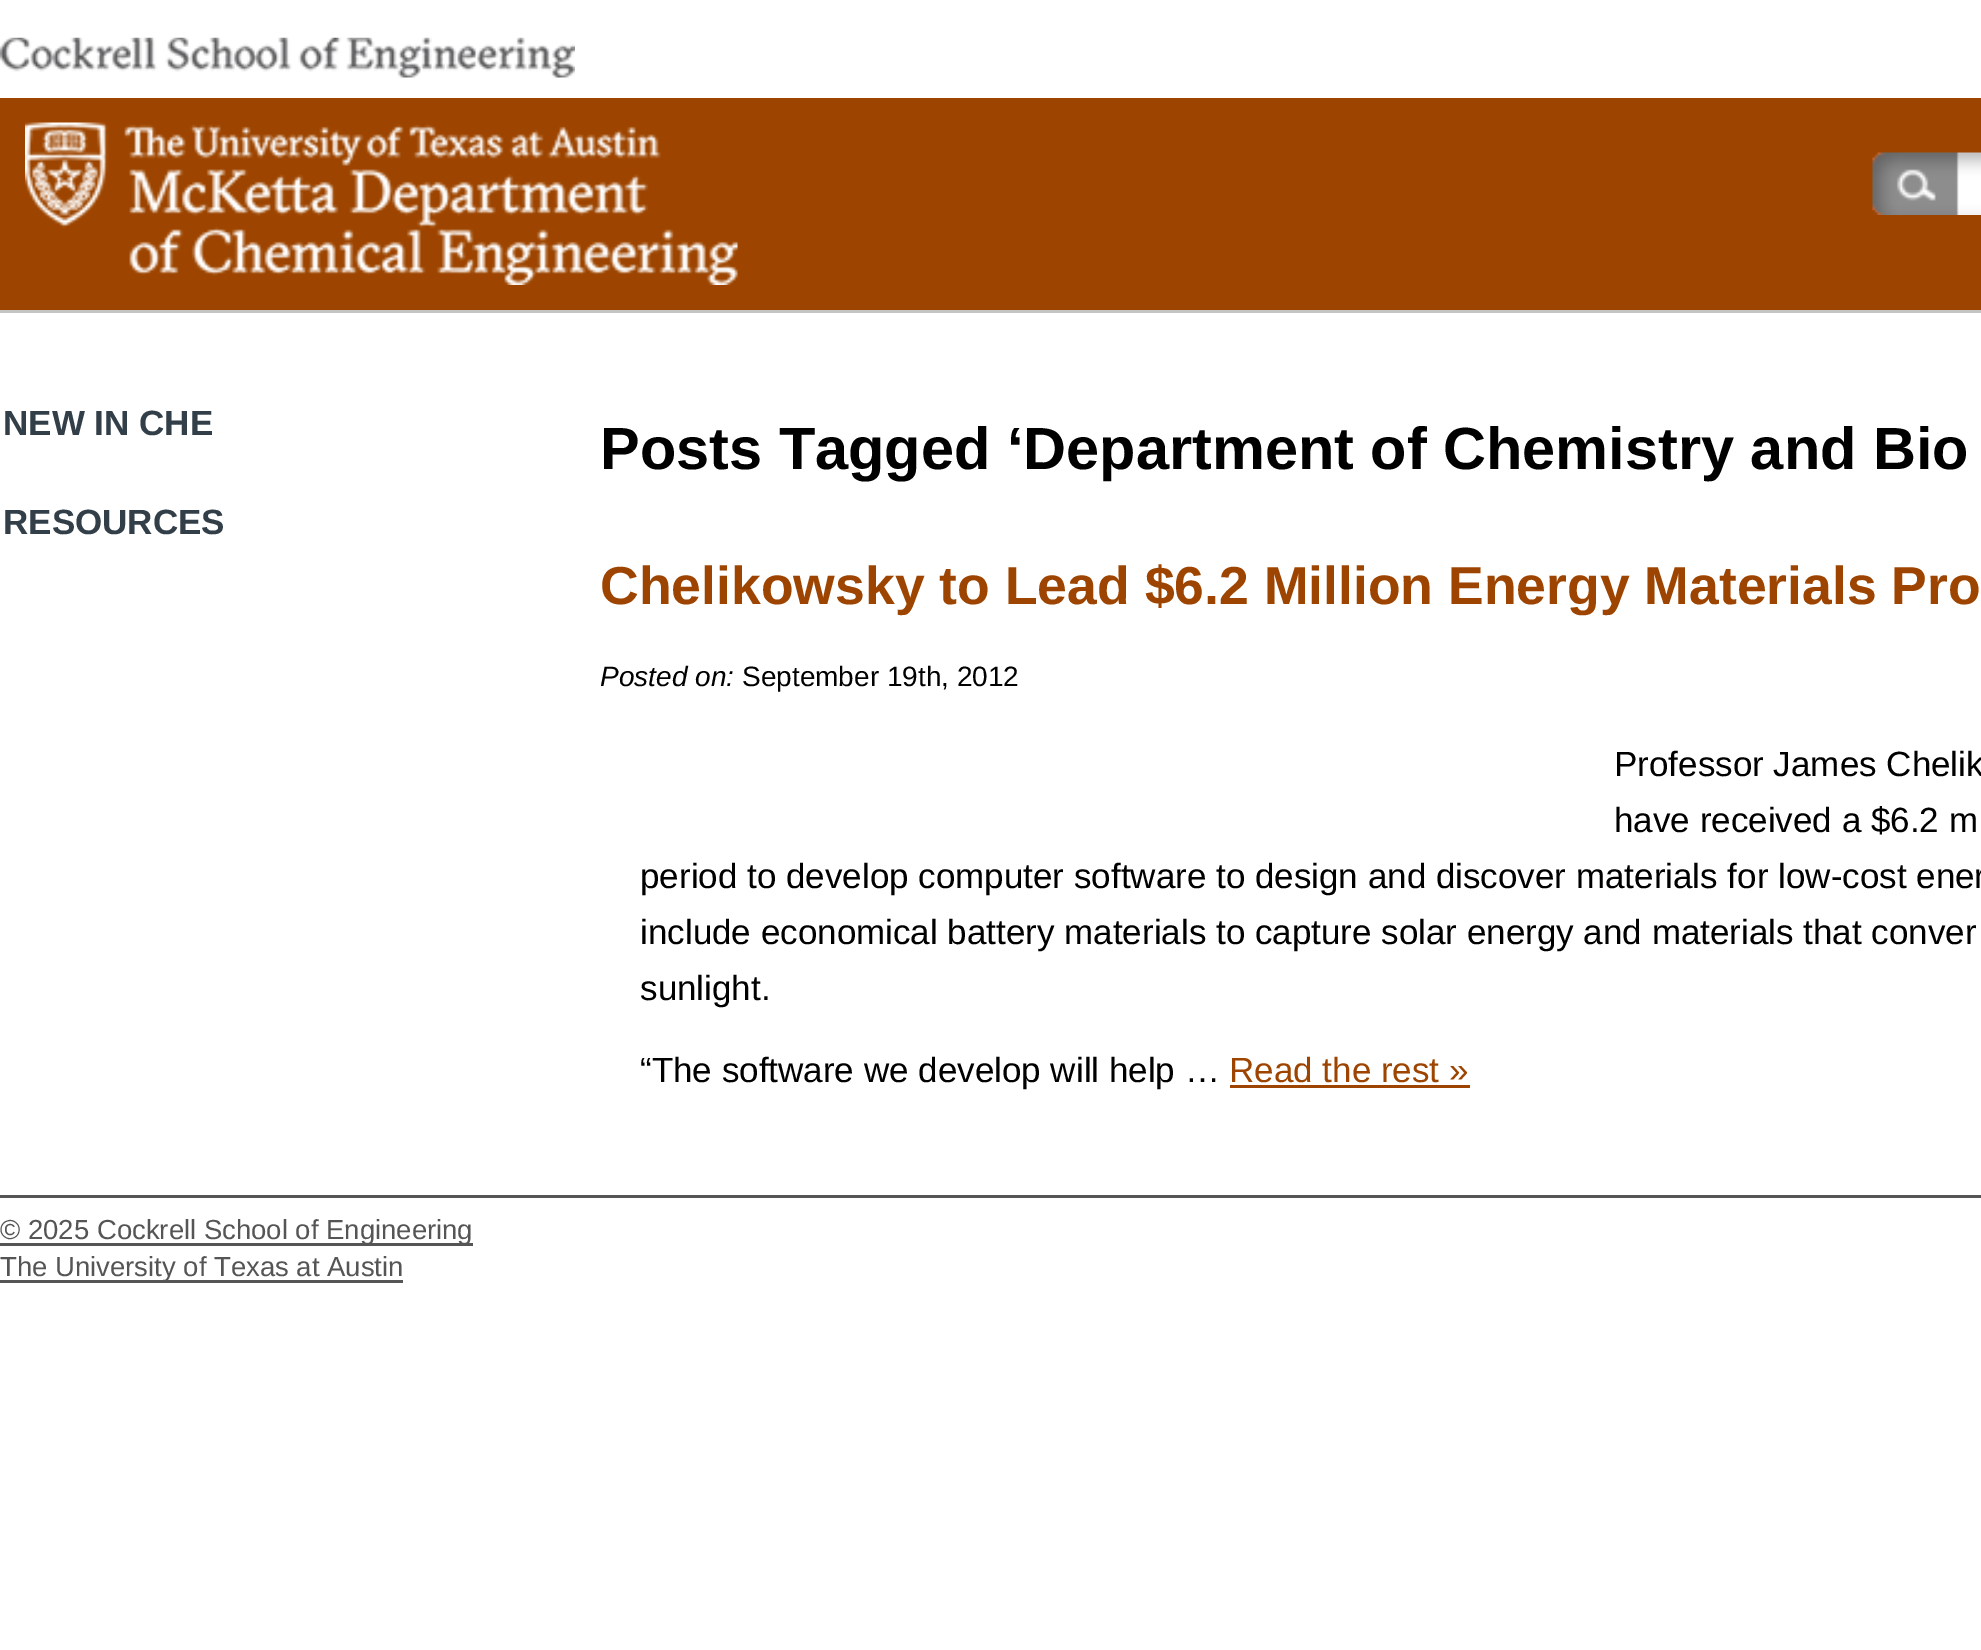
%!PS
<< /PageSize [1981 1650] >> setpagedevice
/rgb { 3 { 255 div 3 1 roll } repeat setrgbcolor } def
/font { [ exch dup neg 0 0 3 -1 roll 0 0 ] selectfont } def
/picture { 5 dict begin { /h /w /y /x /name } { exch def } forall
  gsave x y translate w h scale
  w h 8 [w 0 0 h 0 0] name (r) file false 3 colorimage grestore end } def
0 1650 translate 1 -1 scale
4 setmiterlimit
255 255 255 rgb
0 0 1981 1650 rectfill
(img/1.rgb) 0 37 575 41 picture
157 69 0 rgb
0 98 1981 212 rectfill
(img/2.rgb) 25 122 713 163 picture
(img/3.rgb) 1872 152 109 63 picture
[
  [0 310 1981 3 196 196 196]
  [1230 1085 240 3 157 69 0]
  [0 1195 1981 3 85 85 85]
  [0 1243 473 3 85 85 85]
  [0 1280 403 3 85 85 85]
] { aload pop rgb rectfill } forall
/LiberationSans-Bold 35 font
51 63 72 rgb
3 435 moveto (NEW IN CHE) show
3 534 moveto (RESOURCES) show
/LiberationSans-Bold 59.5 font
0 0 0 rgb
600 469 moveto (Posts Tagged ‘Department of Chemistry and Bio) show
/LiberationSans-Bold 53.55 font
157 69 0 rgb
600 604 moveto (Chelikowsky to Lead $6.2 Million Energy Materials Pro) show
/LiberationSans-Italic 28 font
0 0 0 rgb
600 686 moveto (Posted on:) show
/LiberationSans-Regular 28 font
742 686 moveto (September 19th, 2012) show
/LiberationSans-Regular 35 font
[
  [(Professor James Chelik) 1614 776]
  [(have received a $6.2 m) 1614 832]
  [(period to develop computer software to design and discover materials for low-cost ener) 640 888]
  [(include economical battery materials to capture solar energy and materials that conver) 640 944]
  [(sunlight.) 640 1000]
  [(“The software we develop will help …) 640 1082]
] { aload pop moveto show } forall
157 69 0 rgb
1229 1082 moveto (Read the rest ») show
/LiberationSans-Regular 27.5 font
85 85 85 rgb
0 1239 moveto (© 2025 Cockrell School of Engineering) show
0 1276 moveto (The University of Texas at Austin) show
showpage
